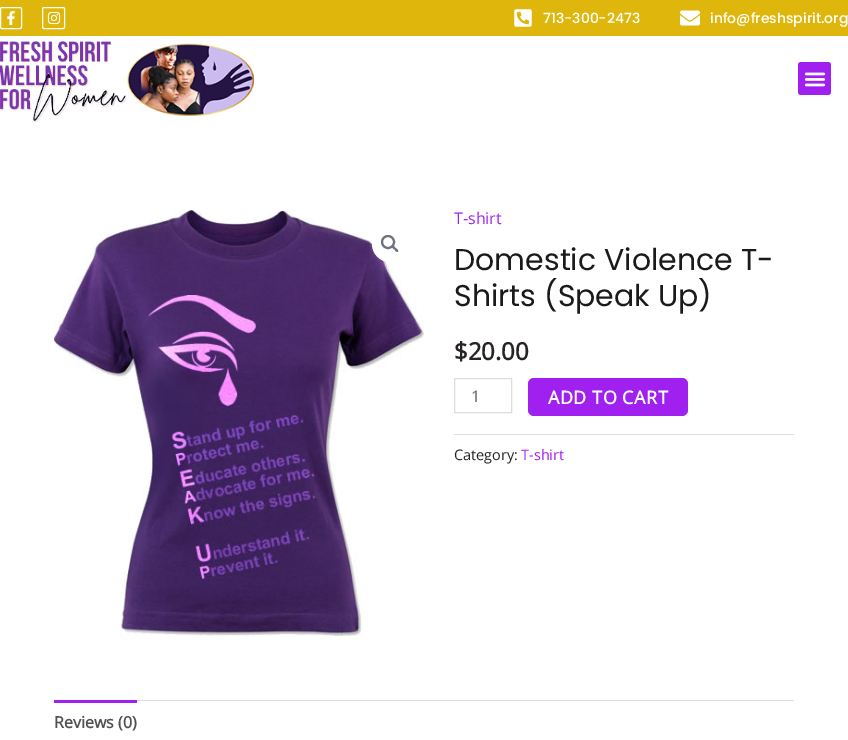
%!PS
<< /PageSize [848 740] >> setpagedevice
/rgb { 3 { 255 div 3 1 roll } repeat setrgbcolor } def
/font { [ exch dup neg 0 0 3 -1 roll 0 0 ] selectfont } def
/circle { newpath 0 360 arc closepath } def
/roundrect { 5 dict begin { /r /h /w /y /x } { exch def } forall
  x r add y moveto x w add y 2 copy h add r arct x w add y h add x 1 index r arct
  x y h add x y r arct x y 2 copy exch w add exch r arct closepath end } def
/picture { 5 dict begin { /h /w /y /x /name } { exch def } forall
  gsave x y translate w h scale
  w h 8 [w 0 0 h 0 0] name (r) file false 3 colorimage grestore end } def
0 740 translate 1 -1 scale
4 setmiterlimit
255 255 255 rgb
0 0 848 740 rectfill
223 183 12 rgb
0 0 848 36 rectfill
255 255 255 rgb
0.5 7.5 21 21 1.5 roundrect stroke
(img/1.rgb) 7 11 8 14 picture
42.5 7.5 22 21 1.5 roundrect stroke
(img/2.rgb) 47 11 14 14 picture
(img/3.rgb) 514 9 18 18 picture
(img/4.rgb) 680 10 20 16 picture
(img/5.rgb) 0 41 127 81 picture
(img/6.rgb) 127 43 127 73 picture
160 32 240 rgb
798 62 33 33 3 roundrect fill
(img/7.rgb) 804 72 22 15 picture
(img/8.rgb) 54 210 370 426 picture
255 255 255 rgb
390 244 18 circle fill
110 113 128 rgb
2 setlinewidth
388 242 6 circle stroke
392 246 moveto 393.5 244.5 395 247.5 395.5 248 curveto 396.5 248.5 399 250.5 398 251.5 curveto 396.5 253 395 250 394.5 249.5 curveto 393.5 249 391 247 392 246 curveto closepath fill
221 221 221 rgb
1 setlinewidth
454.5 378.5 57 34 rectstroke
160 32 240 rgb
528 378 160 38 6 roundrect fill
[
  [454 434 340 1 221 221 221]
  [137 700 657 1 221 221 221]
  [54 700 83 3 160 32 240]
] { aload pop rgb rectfill } forall
/Poppins-Medium 14 font
255 255 255 rgb
543 23 moveto (713-300-2473) show
710 23 moveto (info@freshspirit.org) show
/OpenSans-Regular 16 font
160 32 240 rgb
454 224 moveto (T-shirt) show
/Poppins-Regular 30 font
26 26 26 rgb
454 270 moveto (Domestic Violence T-) show
454 306 moveto (Shirts \(Speak Up\)) show
/OpenSans-Bold 24 font
41 36 36 rgb
454 360 moveto ($20.00) show
/OpenSans-Regular 16 font
102 102 102 rgb
471 402 moveto (1) show
/OpenSans-Bold 18 font
255 255 255 rgb
548 404 moveto 0.5 0 (ADD TO CART) ashow
/OpenSans-Regular 14.5 font
41 36 36 rgb
454 460 moveto (Category:) show
160 32 240 rgb
521 460 moveto (T-shirt) show
/OpenSans-Bold 16 font
81 81 81 rgb
54 728 moveto (Reviews \(0\)) show
showpage
